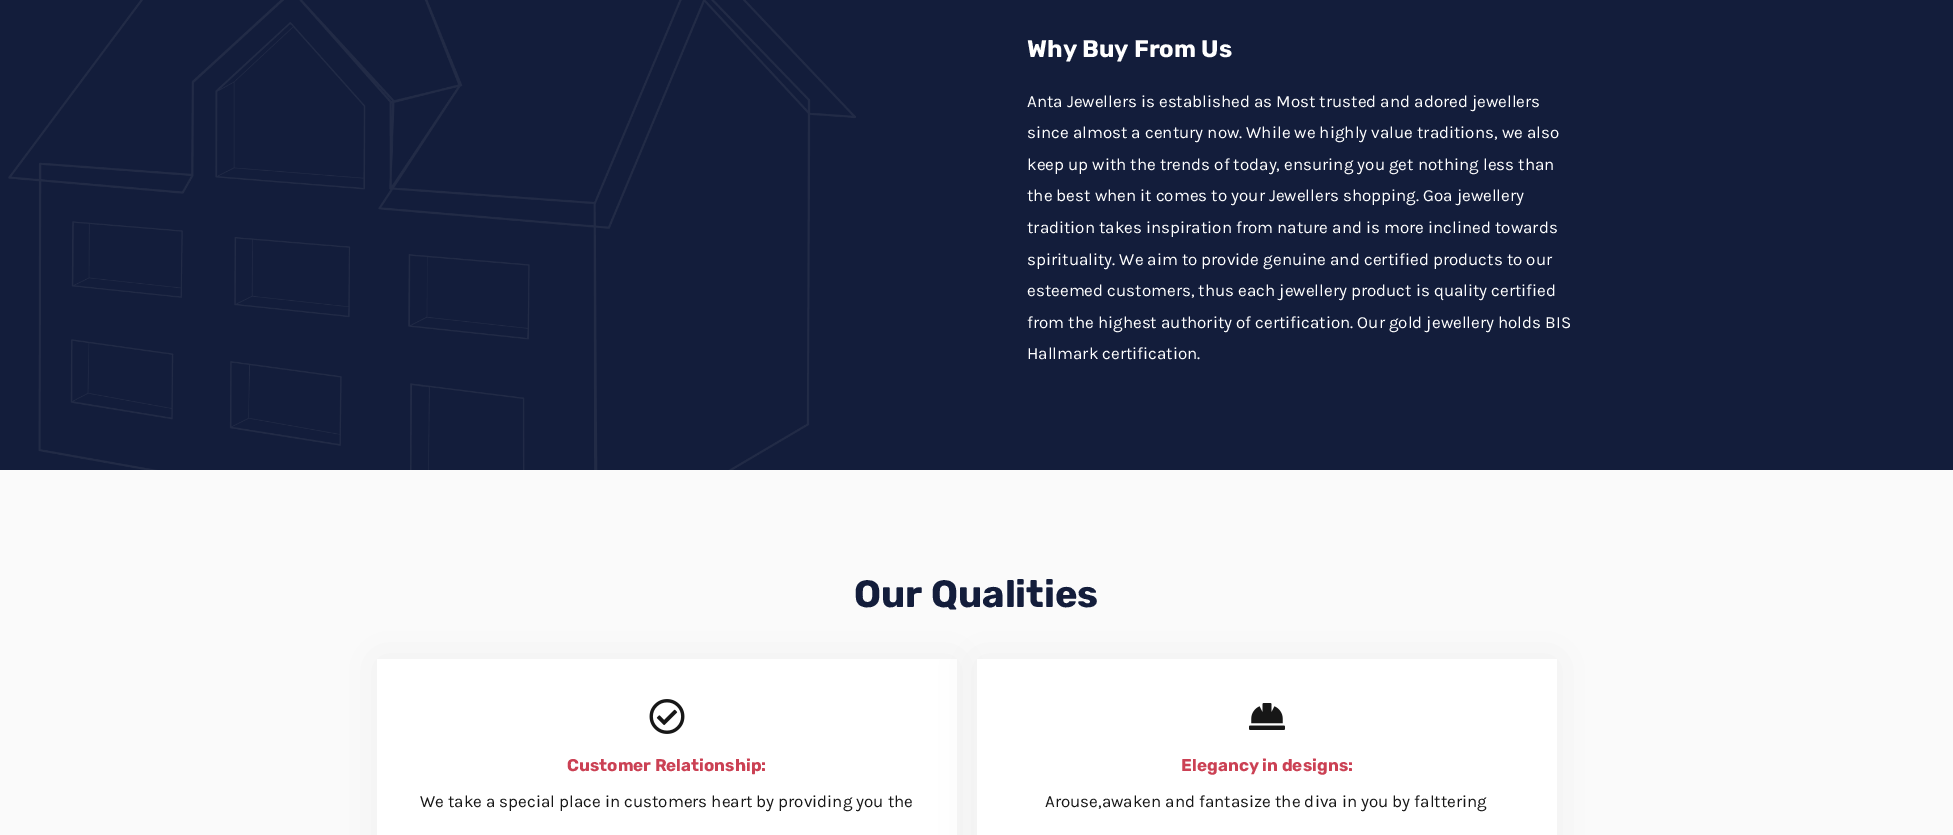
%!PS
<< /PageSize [1953 835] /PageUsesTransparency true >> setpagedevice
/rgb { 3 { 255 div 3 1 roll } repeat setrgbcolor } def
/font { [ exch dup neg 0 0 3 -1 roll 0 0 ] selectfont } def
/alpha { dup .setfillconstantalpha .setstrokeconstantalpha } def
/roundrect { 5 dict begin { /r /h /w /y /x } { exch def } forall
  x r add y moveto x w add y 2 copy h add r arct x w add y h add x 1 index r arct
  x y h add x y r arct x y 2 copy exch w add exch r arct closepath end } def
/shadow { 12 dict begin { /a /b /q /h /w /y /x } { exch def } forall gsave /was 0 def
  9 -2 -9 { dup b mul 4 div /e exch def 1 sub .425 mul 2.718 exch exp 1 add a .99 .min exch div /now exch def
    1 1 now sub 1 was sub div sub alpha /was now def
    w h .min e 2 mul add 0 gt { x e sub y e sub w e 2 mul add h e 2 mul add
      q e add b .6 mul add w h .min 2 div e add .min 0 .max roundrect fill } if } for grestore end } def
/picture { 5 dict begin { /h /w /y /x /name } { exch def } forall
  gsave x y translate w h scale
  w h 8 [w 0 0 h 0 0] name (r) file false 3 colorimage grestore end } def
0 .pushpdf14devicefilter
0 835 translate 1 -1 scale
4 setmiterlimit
250 250 250 rgb
0 0 1953 835 rectfill
19 29 59 rgb
0 0 1953 470 rectfill
(img/1.rgb) 8 0 848 470 picture
227 227 227 rgb
377 659 580 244 0 22.5 0.5 shadow
255 255 255 rgb
377 659 580 176 rectfill
(img/2.rgb) 649 699 36 35 picture
227 227 227 rgb
977 659 580 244 0 22.5 0.5 shadow
255 255 255 rgb
977 659 580 176 rectfill
(img/3.rgb) 1249 703 36 27 picture
/Rubik-Bold 24 font
1027 57 moveto (Why Buy From Us) show
/Karla-Regular 17 font
[
  [(Anta Jewellers is established as Most trusted and adored jewellers) 1027 107]
  [(since almost a century now. While we highly value traditions, we also) 1027 138]
  [(keep up with the trends of today, ensuring you get nothing less than) 1027 170]
  [(the best when it comes to your Jewellers shopping. Goa jewellery) 1027 201]
  [(tradition takes inspiration from nature and is more inclined towards) 1027 233]
  [(spirituality. We aim to provide genuine and certified products to our) 1027 265]
  [(esteemed customers, thus each jewellery product is quality certified) 1027 296]
  [(from the highest authority of certification. Our gold jewellery holds BIS) 1027 328]
  [(Hallmark certification.) 1027 359]
] { aload pop moveto show } forall
/Rubik-Bold 38 font
19 29 59 rgb
854 607 moveto (Our Qualities) show
/Rubik-Bold 17 font
203 65 84 rgb
567 771 moveto (Customer Relationship:) show
/Karla-Regular 17 font
23 23 23 rgb
420 807 moveto (We take a special place in customers heart by providing you the) show
/Rubik-Bold 17 font
203 65 84 rgb
1181 771 moveto (Elegancy in designs:) show
/Karla-Regular 17 font
23 23 23 rgb
1045 807 moveto (Arouse,awaken and fantasize the diva in you by falttering) show
.poppdf14devicefilter showpage
